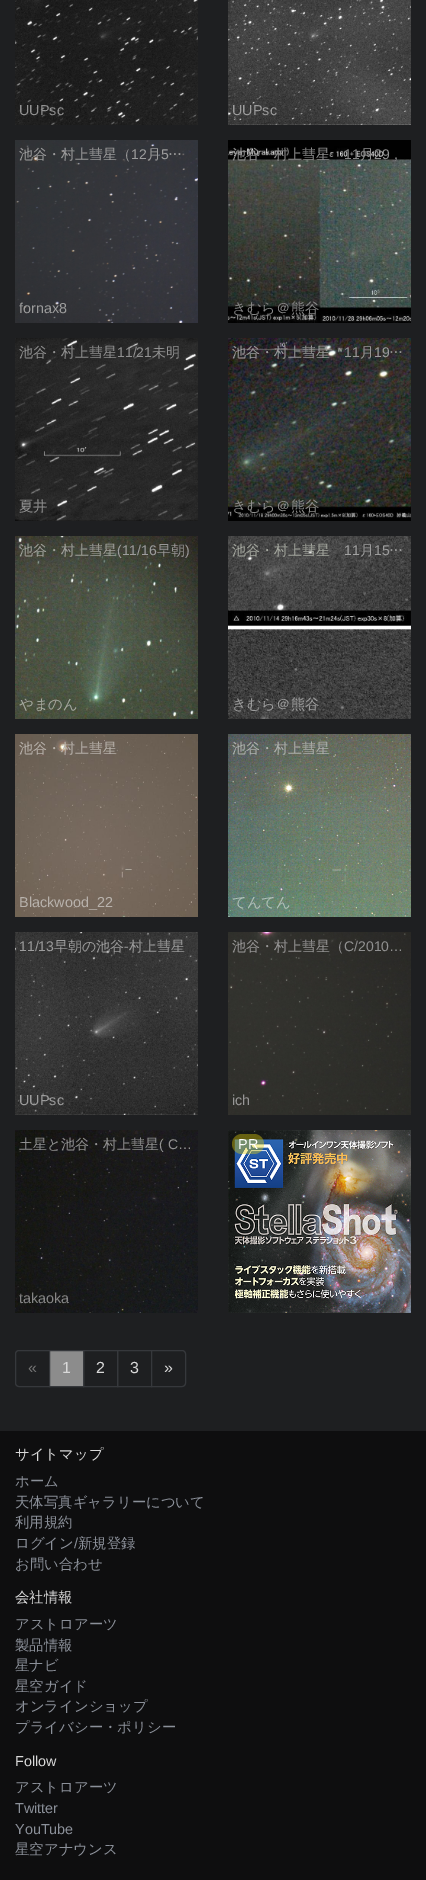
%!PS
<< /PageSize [426 1880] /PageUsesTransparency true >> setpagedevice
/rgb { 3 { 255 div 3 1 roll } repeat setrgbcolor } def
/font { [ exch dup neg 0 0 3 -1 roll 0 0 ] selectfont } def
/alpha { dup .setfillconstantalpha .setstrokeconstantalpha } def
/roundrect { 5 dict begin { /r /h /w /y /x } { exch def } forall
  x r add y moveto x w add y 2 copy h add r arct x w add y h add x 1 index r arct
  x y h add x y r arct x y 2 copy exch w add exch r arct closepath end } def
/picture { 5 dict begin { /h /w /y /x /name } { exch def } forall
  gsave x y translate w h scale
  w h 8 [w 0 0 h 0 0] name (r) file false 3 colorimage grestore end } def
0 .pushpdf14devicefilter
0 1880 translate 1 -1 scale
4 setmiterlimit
30 31 33 rgb
0 0 426 1880 rectfill
(img/1.rgb) 15 0 183 125 picture
(img/2.rgb) 228 0 183 125 picture
(img/3.rgb) 15 140 183 183 picture
(img/4.rgb) 228 140 183 183 picture
(img/5.rgb) 15 338 183 183 picture
(img/6.rgb) 228 338 183 183 picture
(img/7.rgb) 15 536 183 183 picture
(img/8.rgb) 228 536 183 183 picture
(img/9.rgb) 15 734 183 183 picture
(img/10.rgb) 228 734 183 183 picture
(img/11.rgb) 15 932 183 183 picture
(img/12.rgb) 228 932 183 183 picture
(img/13.rgb) 15 1130 183 183 picture
(img/14.rgb) 228 1130 183 183 picture
0.4 alpha
226 207 9 rgb
232 1134 32 20 10 roundrect fill
1 alpha
54 56 60 rgb
19 1350.5 moveto 49.5 1350.5 lineto 49.5 1386.5 lineto 19 1386.5 lineto 17 1386.5 15.5 1385 15.5 1383 curveto 15.5 1354 lineto 15.5 1352 17 1350.5 19 1350.5 curveto closepath stroke
83.5 1350.5 34 36 rectstroke
140 140 140 rgb
49.5 1350.5 moveto 83.5 1350.5 lineto 83.5 1386.5 lineto 49.5 1386.5 lineto closepath gsave fill grestore
54 56 60 rgb
stroke
117.5 1350.5 34 36 rectstroke
30 31 33 rgb
151.5 1350.5 moveto 182 1350.5 lineto 184 1350.5 185.5 1352 185.5 1354 curveto 185.5 1383 lineto 185.5 1385 184 1386.5 182 1386.5 curveto 151.5 1386.5 lineto closepath gsave fill grestore
54 56 60 rgb
stroke
14 14 15 rgb
0 1431 426 449 rectfill
/LiberationSans-Regular 14.4 font
145 145 145 rgb
19 115 moveto (UUPsc) show
156 156 156 rgb
232 115 moveto (UUPsc) show
/WenQuanYiZenHei-Medium 14 font
19 159 moveto (池谷・村上彗星（) show
/LiberationSans-Regular 14 font
131 159 moveto (12) show
/WenQuanYiZenHei-Medium 14 font
147 159 moveto (月) show
/LiberationSans-Regular 14 font
161 159 moveto (5) show
/WenQuanYiZenHei-Medium 14 font
168 159 moveto (…) show
/LiberationSans-Regular 14.4 font
19 313 moveto (fornax8) show
/WenQuanYiZenHei-Medium 14 font
145 145 145 rgb
232 159 moveto (池谷・村上彗星) show
/LiberationSans-Regular 14 font
134 134 134 rgb
344 159 moveto (11) show
/WenQuanYiZenHei-Medium 14 font
145 145 145 rgb
360 159 moveto (月) show
/LiberationSans-Regular 14 font
374 159 moveto (29) show
/WenQuanYiZenHei-Medium 14 font
389 159 moveto (，) show
/WenQuanYiZenHei-Medium 14.4 font
134 134 134 rgb
232 313 moveto (きむら＠熊谷) show
/WenQuanYiZenHei-Medium 14 font
145 145 145 rgb
19 357 moveto (池谷・村上彗星) show
/LiberationSans-Regular 14 font
117 357 moveto (11/21) show
/WenQuanYiZenHei-Medium 14 font
152 357 moveto (未明) show
/WenQuanYiZenHei-Medium 14.4 font
19 511 moveto (夏井) show
/WenQuanYiZenHei-Medium 14 font
156 156 156 rgb
232 357 moveto (池谷・村上彗星) show
/LiberationSans-Regular 14 font
151 150 150 rgb
344 357 moveto (11) show
/WenQuanYiZenHei-Medium 14 font
360 357 moveto (月) show
/LiberationSans-Regular 14 font
156 156 156 rgb
374 357 moveto (19) show
/WenQuanYiZenHei-Medium 14 font
145 145 145 rgb
389 357 moveto (…) show
/WenQuanYiZenHei-Medium 14.4 font
141 141 139 rgb
232 511 moveto (きむら＠熊谷) show
/WenQuanYiZenHei-Medium 14 font
161 162 156 rgb
19 555 moveto (池谷・村上彗星) show
/LiberationSans-Regular 14 font
156 156 156 rgb
117 555 moveto (\(11/16) show
/WenQuanYiZenHei-Medium 14 font
151 150 150 rgb
157 555 moveto (早朝) show
/LiberationSans-Regular 14 font
185 555 moveto (\)) show
/WenQuanYiZenHei-Medium 14.4 font
165 168 159 rgb
19 709 moveto (やまのん) show
/WenQuanYiZenHei-Medium 14 font
232 555 moveto (池谷・村上彗星) show
/LiberationSans-Regular 14 font
162 162 162 rgb
344 555 moveto (11) show
/WenQuanYiZenHei-Medium 14 font
156 156 156 rgb
360 555 moveto (月) show
/LiberationSans-Regular 14 font
374 555 moveto (15) show
/WenQuanYiZenHei-Medium 14 font
389 555 moveto (…) show
/WenQuanYiZenHei-Medium 14.4 font
232 709 moveto (きむら＠熊谷) show
/WenQuanYiZenHei-Medium 14 font
184 178 172 rgb
19 753 moveto (池谷・村上彗星) show
/LiberationSans-Regular 14.4 font
19 907 moveto (Blackwood_22) show
/WenQuanYiZenHei-Medium 14 font
175 178 174 rgb
232 753 moveto (池谷・村上彗星) show
/WenQuanYiZenHei-Medium 14.4 font
178 193 185 rgb
232 907 moveto (てんてん) show
/LiberationSans-Regular 14 font
156 156 156 rgb
19 951 moveto (11/13) show
/WenQuanYiZenHei-Medium 14 font
54 951 moveto (早朝の池谷) show
/LiberationSans-Regular 14 font
124 951 moveto (-) show
/WenQuanYiZenHei-Medium 14 font
129 951 moveto (村上彗星) show
/LiberationSans-Regular 14.4 font
19 1105 moveto (UUPsc) show
/WenQuanYiZenHei-Medium 14 font
151 150 150 rgb
232 951 moveto (池谷・村上彗星（) show
/LiberationSans-Regular 14 font
145 145 145 rgb
344 951 moveto (C/2010…) show
/LiberationSans-Regular 14.4 font
151 150 150 rgb
232 1105 moveto (ich) show
/WenQuanYiZenHei-Medium 14 font
145 145 145 rgb
19 1149 moveto (土星と池谷・村上彗星) show
/LiberationSans-Regular 14 font
159 1149 moveto (\( C…) show
/LiberationSans-Regular 14.4 font
134 134 134 rgb
19 1303 moveto (takaoka) show
255 255 255 rgb
238 1149 moveto (PR) show
/LiberationSans-Regular 16 font
115 115 115 rgb
28 1373 moveto («) show
217 217 217 rgb
[
  [(1) 62 1373]
  [(2) 96 1373]
  [(3) 130 1373]
  [(») 164 1373]
] { aload pop moveto show } forall
/WenQuanYiZenHei-Medium 14.4 font
15 1459 moveto (サイトマップ) show
139 144 153 rgb
[
  [(ホーム) 15 1486]
  [(天体写真ギャラリーについて) 15 1507]
  [(利用規約) 15 1527]
  [(ログイン) 15 1548]
] { aload pop moveto show } forall
/LiberationSans-Regular 14.4 font
74 1548 moveto (/) show
/WenQuanYiZenHei-Medium 14.4 font
78 1548 moveto (新規登録) show
15 1569 moveto (お問い合わせ) show
217 217 217 rgb
15 1602 moveto (会社情報) show
139 144 153 rgb
[
  [(アストロアーツ) 15 1629]
  [(製品情報) 15 1650]
  [(星ナビ) 15 1670]
  [(星空ガイド) 15 1691]
  [(オンラインショップ) 15 1711]
  [(プライバシー・ポリシー) 15 1732]
] { aload pop moveto show } forall
/LiberationSans-Regular 14.4 font
217 217 217 rgb
15 1766 moveto (Follow) show
/WenQuanYiZenHei-Medium 14.4 font
139 144 153 rgb
15 1792 moveto (アストロアーツ) show
/LiberationSans-Regular 14.4 font
15 1813 moveto (Twitter) show
15 1834 moveto (YouTube) show
/WenQuanYiZenHei-Medium 14.4 font
15 1854 moveto (星空アナウンス) show
.poppdf14devicefilter showpage
